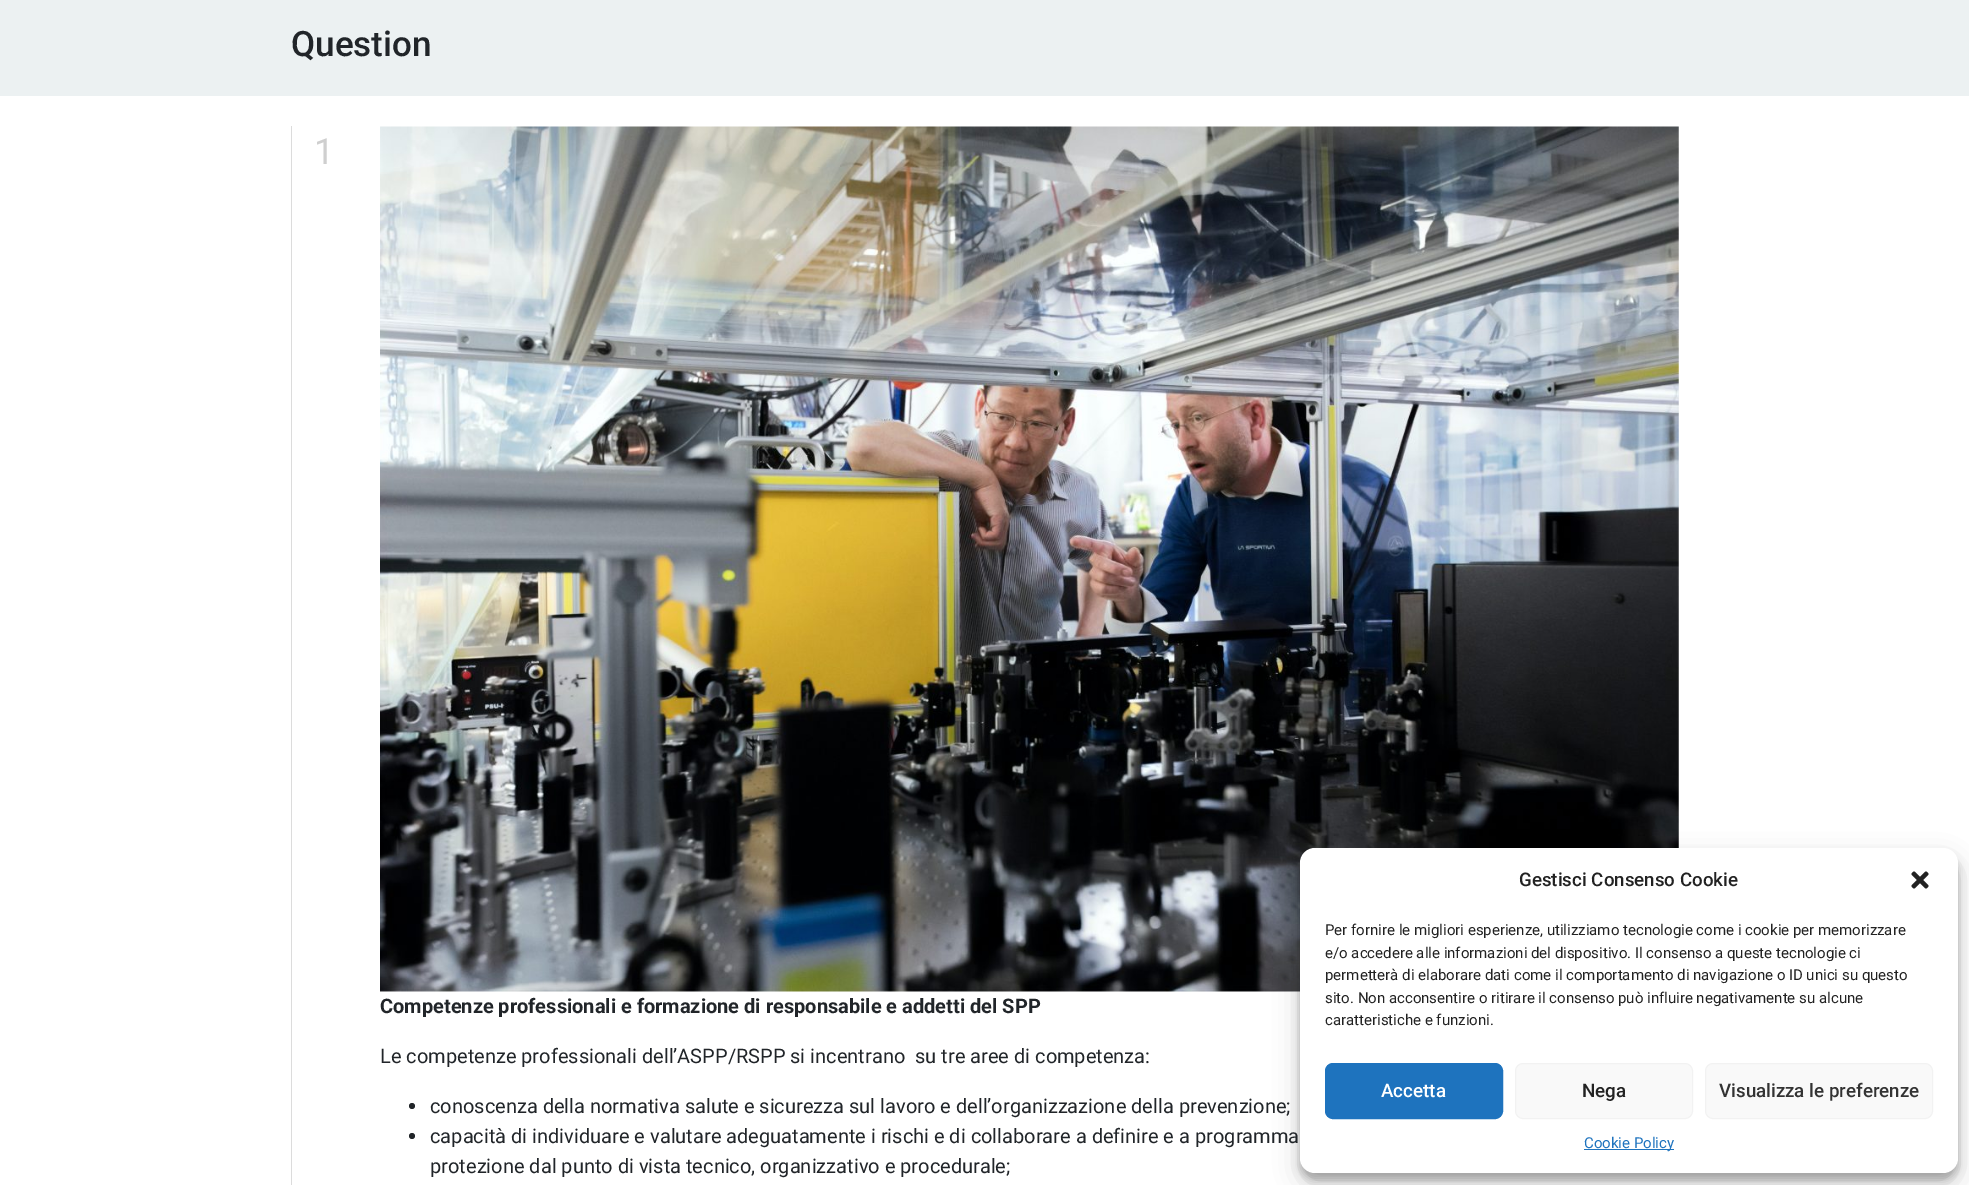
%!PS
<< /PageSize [1969 1185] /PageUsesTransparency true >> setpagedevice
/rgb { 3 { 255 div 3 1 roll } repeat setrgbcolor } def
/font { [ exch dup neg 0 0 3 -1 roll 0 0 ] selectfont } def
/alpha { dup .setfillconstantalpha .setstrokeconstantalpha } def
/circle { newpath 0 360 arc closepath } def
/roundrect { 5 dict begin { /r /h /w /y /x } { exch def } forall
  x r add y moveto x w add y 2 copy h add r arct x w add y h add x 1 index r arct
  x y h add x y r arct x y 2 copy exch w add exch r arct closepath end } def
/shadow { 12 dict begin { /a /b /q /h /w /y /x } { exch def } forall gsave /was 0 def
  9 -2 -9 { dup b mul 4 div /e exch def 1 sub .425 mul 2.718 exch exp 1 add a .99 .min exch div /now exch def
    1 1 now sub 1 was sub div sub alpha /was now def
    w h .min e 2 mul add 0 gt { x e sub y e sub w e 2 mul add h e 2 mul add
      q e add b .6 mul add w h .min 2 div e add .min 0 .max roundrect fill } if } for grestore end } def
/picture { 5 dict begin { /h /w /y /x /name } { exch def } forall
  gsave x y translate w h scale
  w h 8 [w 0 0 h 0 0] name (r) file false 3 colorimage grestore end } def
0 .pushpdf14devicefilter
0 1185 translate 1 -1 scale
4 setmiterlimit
255 255 255 rgb
0 0 1969 1185 rectfill
236 241 242 rgb
0 0 1969 96 rectfill
220 220 220 rgb
291 126 1 1059 rectfill
(img/1.rgb) 380 126 1299 866 picture
33 37 41 rgb
412 1106 3 circle fill
412 1136 3 circle fill
0 0 0 rgb
1300 855 658 325 15 4 0.23 shadow
1300 860 658 325 15 12.5 0.19 shadow
255 255 255 rgb
1300 848 658 325 15 roundrect fill
(img/2.rgb) 1911 871 18 18 picture
30 115 190 rgb
1325.5 1063.5 177 55 7.5 roundrect gsave fill grestore
stroke
249 249 249 rgb
1515.5 1063.5 177 55 7.5 roundrect gsave fill grestore
242 242 242 rgb
stroke
249 249 249 rgb
1705.5 1063.5 227 55 7.5 roundrect gsave fill grestore
242 242 242 rgb
stroke
30 115 190 rgb
1584 1149 90 1 rectfill
/Roboto-Medium 35 font
33 37 41 rgb
291 56 moveto (Question) show
/Roboto-Regular 36 font
207 207 207 rgb
314 164 moveto (1) show
/Roboto-Bold 20 font
33 37 41 rgb
380 1013 moveto (Competenze professionali e formazione di responsabile e addetti del SPP) show
/Roboto-Regular 20 font
[
  [(Le competenze professionali dell’ASPP/RSPP si incentrano  su tre aree di competenza:) 380 1063]
  [(conoscenza della normativa salute e sicurezza sul lavoro e dell’organizzazione della prevenzione;) 430 1113]
  [(capacità di individuare e valutare adeguatamente i rischi e di collaborare a definire e a programma) 430 1143]
  [(protezione dal punto di vista tecnico, organizzativo e procedurale;) 430 1173]
] { aload pop moveto show } forall
/Roboto-Medium 18.75 font
34 34 34 rgb
1519 886 moveto (Gestisci Consenso Cookie) show
/Roboto-Regular 15 font
[
  [(Per fornire le migliori esperienze, utilizziamo tecnologie come i cookie per memorizzare) 1325 935]
  [(e/o accedere alle informazioni del dispositivo. Il consenso a queste tecnologie ci) 1325 958]
  [(permetterà di elaborare dati come il comportamento di navigazione o ID unici su questo) 1325 980]
  [(sito. Non acconsentire o ritirare il consenso può influire negativamente su alcune) 1325 1003]
  [(caratteristiche e funzioni.) 1325 1025]
] { aload pop moveto show } forall
/Roboto-Medium 18.75 font
255 255 255 rgb
1381 1097 moveto (Accetta) show
34 34 34 rgb
1582 1097 moveto (Nega) show
51 51 51 rgb
1719 1097 moveto (Visualizza le preferenze) show
/Roboto-Regular 15 font
30 115 190 rgb
1584 1148 moveto (Cookie Policy) show
.poppdf14devicefilter showpage
